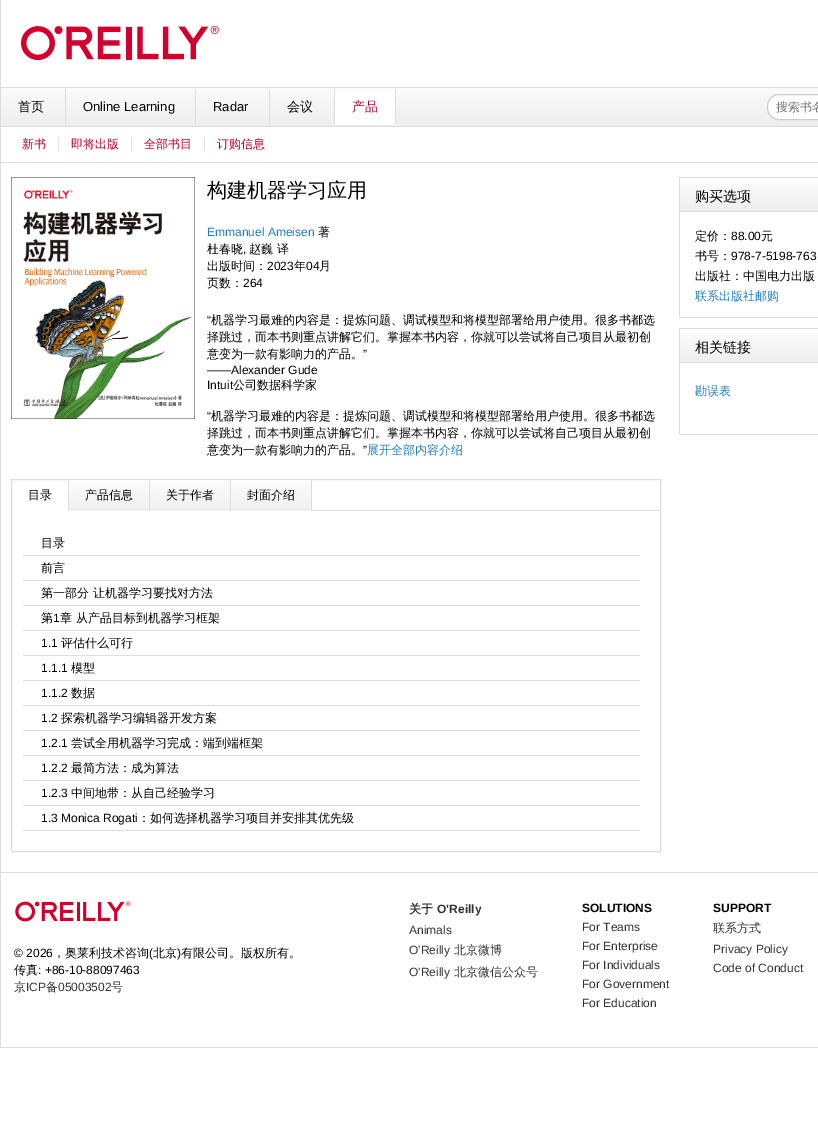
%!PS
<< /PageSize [818 1137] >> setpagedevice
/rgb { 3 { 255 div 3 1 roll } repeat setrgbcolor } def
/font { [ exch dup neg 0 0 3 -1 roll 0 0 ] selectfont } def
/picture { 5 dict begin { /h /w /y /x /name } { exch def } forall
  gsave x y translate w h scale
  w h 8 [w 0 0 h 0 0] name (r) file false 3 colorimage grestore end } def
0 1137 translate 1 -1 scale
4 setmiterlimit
255 255 255 rgb
0 0 818 1137 rectfill
221 221 221 rgb
0 1047 818 1 rectfill
0 0 1 1048 rectfill
(img/1.rgb) 21 25 198 36 picture
gsave 1 88 moveto 818 88 lineto 818 126 lineto 1 126 lineto closepath clip newpath
<< /ShadingType 2 /ColorSpace /DeviceRGB /Coords [496 88 496 126] /Extend [true true] /Function << /FunctionType 2 /Domain [0 1] /C0 [0.984 0.984 0.984] /C1 [0.933 0.933 0.933] /N 1 >> >> shfill grestore
[
  [1 87 817 1 221 221 221]
  [1 126 817 1 221 221 221]
  [65 89 1 35 221 221 221]
  [195 89 1 35 221 221 221]
  [269 89 1 35 221 221 221]
  [334 89 1 35 221 221 221]
  [335 89 60 35 255 255 255]
  [395 89 1 36 221 221 221]
  [335 124 61 1 255 255 255]
] { aload pop rgb rectfill } forall
779 94.5 moveto 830.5 94.5 lineto 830.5 119.5 lineto 779 119.5 lineto 772.5 119.5 767.5 114.5 767.5 108 curveto 767.5 106 lineto 767.5 99.5 772.5 94.5 779 94.5 curveto closepath gsave fill grestore
204 204 204 rgb
stroke
[
  [1 162 817 1 221 221 221]
  [58 137 1 14 221 221 221]
  [131 137 1 14 221 221 221]
  [204 137 1 14 221 221 221]
] { aload pop rgb rectfill } forall
(img/2.rgb) 11 177 184 242 picture
11.5 479.5 649 372 rectstroke
[
  [312 510 348 1 221 221 221]
  [68 480 1 32 221 221 221]
  [68 511 1 1 255 255 255]
] { aload pop rgb rectfill } forall
(img/3.rgb) 69 480 80 31 picture
221 221 221 rgb
149 480 1 31 rectfill
(img/3.rgb) 150 480 80 31 picture
230 480 1 31 rectfill
(img/3.rgb) 231 480 80 31 picture
[
  [311 480 1 31 221 221 221]
  [22 555 618 1 222 222 222]
  [22 555 1 1 255 255 255]
  [22 580 618 1 222 222 222]
  [22 580 1 1 255 255 255]
  [22 605 618 1 222 222 222]
  [22 605 1 1 255 255 255]
  [22 630 618 1 222 222 222]
  [22 630 1 1 255 255 255]
  [22 655 618 1 222 222 222]
  [22 655 1 1 255 255 255]
  [22 680 618 1 222 222 222]
  [22 680 1 1 255 255 255]
  [22 705 618 1 222 222 222]
  [22 705 1 1 255 255 255]
  [22 730 618 1 222 222 222]
  [22 730 1 1 255 255 255]
  [22 755 618 1 222 222 222]
  [22 755 1 1 255 255 255]
  [22 780 618 1 222 222 222]
  [22 780 1 1 255 255 255]
  [22 805 618 1 222 222 222]
  [22 805 1 1 255 255 255]
  [22 830 618 1 222 222 222]
  [22 830 1 1 255 255 255]
  [679 177 139 1 221 221 221]
  [679 177 1 141 221 221 221]
] { aload pop rgb rectfill } forall
(img/4.rgb) 680 182 138 30 picture
[
  [680 317 138 1 221 221 221]
  [679 328 139 1 221 221 221]
  [679 328 1 107 221 221 221]
] { aload pop rgb rectfill } forall
(img/4.rgb) 680 333 138 30 picture
680 434 138 1 rectfill
1 872 817 1 rectfill
(img/5.rgb) 15 901 116 21 picture
/WenQuanYiZenHei-Medium 13 font
0 0 0 rgb
18 111 moveto (首页) show
/LiberationSans-Regular 13 font
83 111 moveto (Online Learning) show
213 111 moveto (Radar) show
/WenQuanYiZenHei-Medium 13 font
287 111 moveto (会议) show
185 0 45 rgb
352 111 moveto (产品) show
/WenQuanYiZenHei-Medium 12 font
117 117 117 rgb
776 111 moveto (搜索书名) show
185 0 45 rgb
[
  [(新书) 22 148]
  [(即将出版) 71 148]
  [(全部书目) 144 148]
  [(订购信息) 217 148]
] { aload pop moveto show } forall
/WenQuanYiZenHei-Medium 20 font
0 0 0 rgb
207 197 moveto (构建机器学习应用) show
/LiberationSans-Regular 12 font
32 124 193 rgb
207 236 moveto (Emmanuel Ameisen) show
/WenQuanYiZenHei-Medium 12 font
0 0 0 rgb
318 236 moveto (著) show
207 253 moveto (杜春晓) show
/LiberationSans-Regular 12 font
243 253 moveto (,) show
/WenQuanYiZenHei-Medium 12 font
249 253 moveto (赵巍 译) show
207 270 moveto (出版时间：) show
/LiberationSans-Regular 12 font
267 270 moveto (2023) show
/WenQuanYiZenHei-Medium 12 font
294 270 moveto (年) show
/LiberationSans-Regular 12 font
306 270 moveto (04) show
/WenQuanYiZenHei-Medium 12 font
319 270 moveto (月) show
207 287 moveto (页数：) show
/LiberationSans-Regular 12 font
243 287 moveto (264) show
207 324 moveto (“) show
/WenQuanYiZenHei-Medium 12 font
[
  [(机器学习最难的内容是：提炼问题、调试模型和将模型部署给用户使用。很多书都选) 211 324]
  [(择跳过，而本书则重点讲解它们。掌握本书内容，你就可以尝试将自己项目从最初创) 207 341]
  [(意变为一款有影响力的产品。) 207 358]
] { aload pop moveto show } forall
/LiberationSans-Regular 12 font
[
  [(”) 363 358]
  [(——Alexander Gude) 207 374]
  [(Intuit) 207 389]
] { aload pop moveto show } forall
/WenQuanYiZenHei-Medium 12 font
233 389 moveto (公司数据科学家) show
/LiberationSans-Regular 12 font
207 420 moveto (“) show
/WenQuanYiZenHei-Medium 12 font
[
  [(机器学习最难的内容是：提炼问题、调试模型和将模型部署给用户使用。很多书都选) 211 420]
  [(择跳过，而本书则重点讲解它们。掌握本书内容，你就可以尝试将自己项目从最初创) 207 437]
  [(意变为一款有影响力的产品。) 207 454]
] { aload pop moveto show } forall
/LiberationSans-Regular 12 font
363 454 moveto (”) show
/WenQuanYiZenHei-Medium 12 font
32 124 193 rgb
367 454 moveto (展开全部内容介绍) show
0 0 0 rgb
[
  [(目录) 28 499]
  [(产品信息) 85 499]
  [(关于作者) 166 499]
  [(封面介绍) 247 499]
  [(目录) 41 547]
  [(前言) 41 572]
  [(第一部分 让机器学习要找对方法) 41 597]
  [(第) 41 622]
] { aload pop moveto show } forall
/LiberationSans-Regular 12 font
53 622 moveto (1) show
/WenQuanYiZenHei-Medium 12 font
60 622 moveto (章 从产品目标到机器学习框架) show
/LiberationSans-Regular 12 font
41 647 moveto (1.1) show
/WenQuanYiZenHei-Medium 12 font
61 647 moveto (评估什么可行) show
/LiberationSans-Regular 12 font
41 672 moveto (1.1.1) show
/WenQuanYiZenHei-Medium 12 font
71 672 moveto (模型) show
/LiberationSans-Regular 12 font
41 697 moveto (1.1.2) show
/WenQuanYiZenHei-Medium 12 font
71 697 moveto (数据) show
/LiberationSans-Regular 12 font
41 722 moveto (1.2) show
/WenQuanYiZenHei-Medium 12 font
61 722 moveto (探索机器学习编辑器开发方案) show
/LiberationSans-Regular 12 font
41 747 moveto (1.2.1) show
/WenQuanYiZenHei-Medium 12 font
71 747 moveto (尝试全用机器学习完成：端到端框架) show
/LiberationSans-Regular 12 font
41 772 moveto (1.2.2) show
/WenQuanYiZenHei-Medium 12 font
71 772 moveto (最简方法：成为算法) show
/LiberationSans-Regular 12 font
41 797 moveto (1.2.3) show
/WenQuanYiZenHei-Medium 12 font
71 797 moveto (中间地带：从自己经验学习) show
/LiberationSans-Regular 12 font
41 822 moveto (1.3 Monica Rogati) show
/WenQuanYiZenHei-Medium 12 font
138 822 moveto (：如何选择机器学习项目并安排其优先级) show
/WenQuanYiZenHei-Medium 14 font
695 201 moveto (购买选项) show
/WenQuanYiZenHei-Medium 12 font
695 240 moveto (定价：) show
/LiberationSans-Regular 12 font
731 240 moveto (88.00) show
/WenQuanYiZenHei-Medium 12 font
761 240 moveto (元) show
695 260 moveto (书号：) show
/LiberationSans-Regular 12 font
731 260 moveto (978-7-5198-763) show
/WenQuanYiZenHei-Medium 12 font
695 280 moveto (出版社：中国电力出版) show
32 124 193 rgb
695 300 moveto (联系出版社邮购) show
/WenQuanYiZenHei-Medium 14 font
0 0 0 rgb
695 352 moveto (相关链接) show
/WenQuanYiZenHei-Medium 12 font
32 124 193 rgb
695 395 moveto (勘误表) show
/LiberationSans-Regular 12 font
0 0 0 rgb
14 957 moveto (© 2026) show
/WenQuanYiZenHei-Medium 12 font
53 957 moveto (，奥莱利技术咨询) show
/LiberationSans-Regular 12 font
149 957 moveto (\() show
/WenQuanYiZenHei-Medium 12 font
153 957 moveto (北京) show
/LiberationSans-Regular 12 font
177 957 moveto (\)) show
/WenQuanYiZenHei-Medium 12 font
181 957 moveto (有限公司。版权所有。) show
14 974 moveto (传真) show
/LiberationSans-Regular 12 font
38 974 moveto (: +86-10-88097463) show
/WenQuanYiZenHei-Medium 12 font
51 51 51 rgb
14 991 moveto (京) show
/LiberationSans-Regular 12 font
26 991 moveto (ICP) show
/WenQuanYiZenHei-Medium 12 font
46 991 moveto (备) show
/LiberationSans-Regular 12 font
58 991 moveto (05003502) show
/WenQuanYiZenHei-Medium 12 font
111 991 moveto (号) show
/WenQuanYiZenHei-Bold 12 font
409 913 moveto (关于) show
/LiberationSans-Bold 12 font
437 913 moveto (O'Reilly) show
/LiberationSans-Regular 12 font
409 934 moveto (Animals) show
409 954 moveto (O'Reilly) show
/WenQuanYiZenHei-Medium 12 font
454 954 moveto (北京微博) show
/LiberationSans-Regular 12 font
409 976 moveto (O'Reilly) show
/WenQuanYiZenHei-Medium 12 font
454 976 moveto (北京微信公众号) show
/LiberationSans-Bold 12 font
0 0 0 rgb
582 912 moveto (SOLUTIONS) show
/LiberationSans-Regular 12 font
51 51 51 rgb
[
  [(For Teams) 582 931]
  [(For Enterprise) 582 950]
  [(For Individuals) 582 969]
  [(For Government) 582 988]
  [(For Education) 582 1007]
] { aload pop moveto show } forall
/LiberationSans-Bold 12 font
0 0 0 rgb
713 912 moveto (SUPPORT) show
/WenQuanYiZenHei-Medium 12 font
51 51 51 rgb
713 932 moveto (联系方式) show
/LiberationSans-Regular 12 font
713 953 moveto (Privacy Policy) show
713 972 moveto (Code of Conduct) show
showpage
